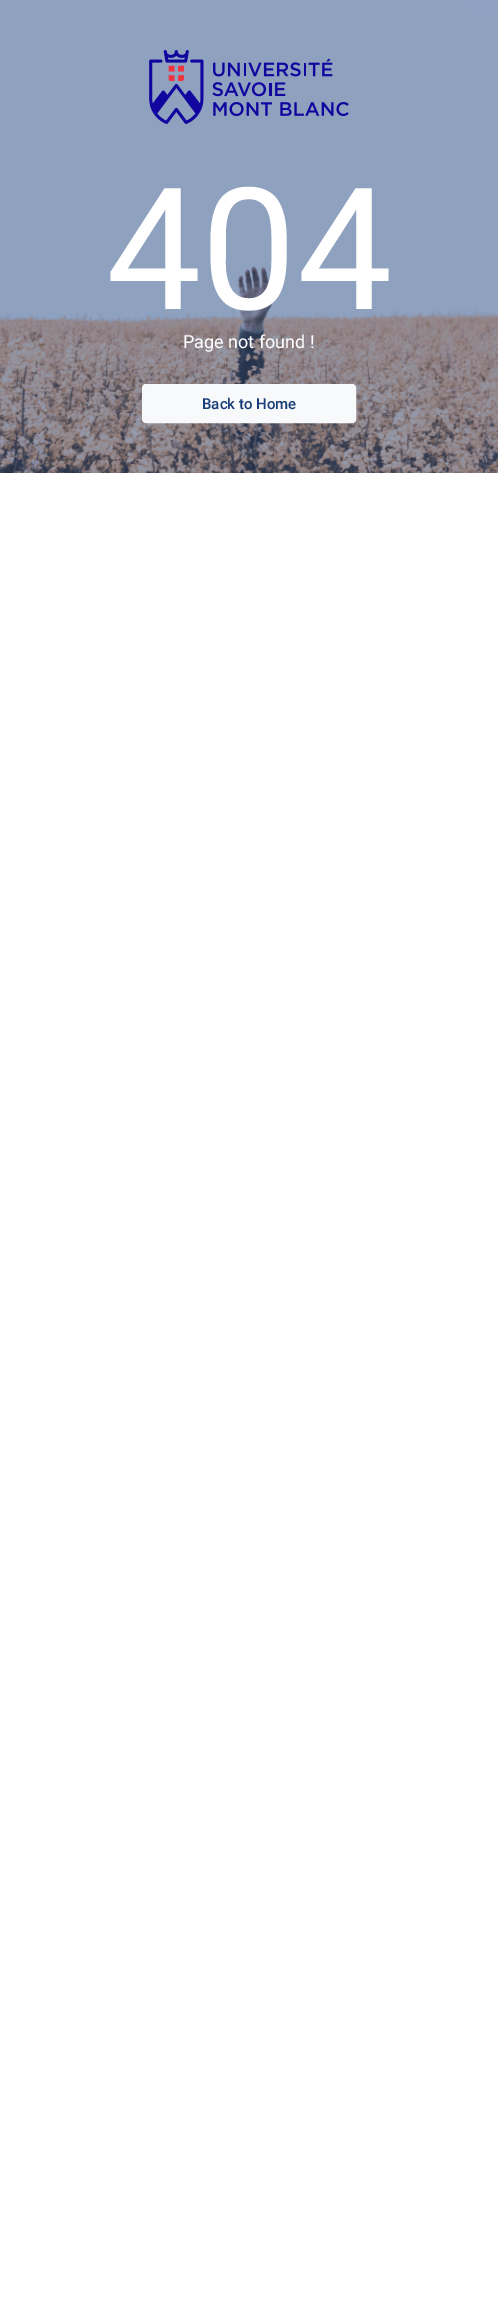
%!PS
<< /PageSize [498 2309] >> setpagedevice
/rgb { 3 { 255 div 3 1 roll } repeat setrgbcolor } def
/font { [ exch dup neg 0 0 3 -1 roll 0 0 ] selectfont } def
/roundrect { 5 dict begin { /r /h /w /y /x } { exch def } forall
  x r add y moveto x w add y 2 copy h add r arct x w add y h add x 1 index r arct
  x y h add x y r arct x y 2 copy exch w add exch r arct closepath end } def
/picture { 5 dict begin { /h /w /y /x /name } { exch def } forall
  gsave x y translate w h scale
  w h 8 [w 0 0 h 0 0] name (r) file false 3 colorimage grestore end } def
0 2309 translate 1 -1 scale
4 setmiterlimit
255 255 255 rgb
0 0 498 2309 rectfill
(img/1.rgb) 0 0 498 473 picture
(img/2.rgb) 149 50 200 74 picture
248 249 250 rgb
142.5 384.5 213 38 3.5 roundrect gsave fill grestore
stroke
/Roboto-Regular 170 font
255 255 255 rgb
106 309 moveto (404) show
/Roboto-Regular 18 font
183 348 moveto (Page not found !) show
/Roboto-Medium 15 font
26 62 120 rgb
202 409 moveto (Back to Home) show
showpage
